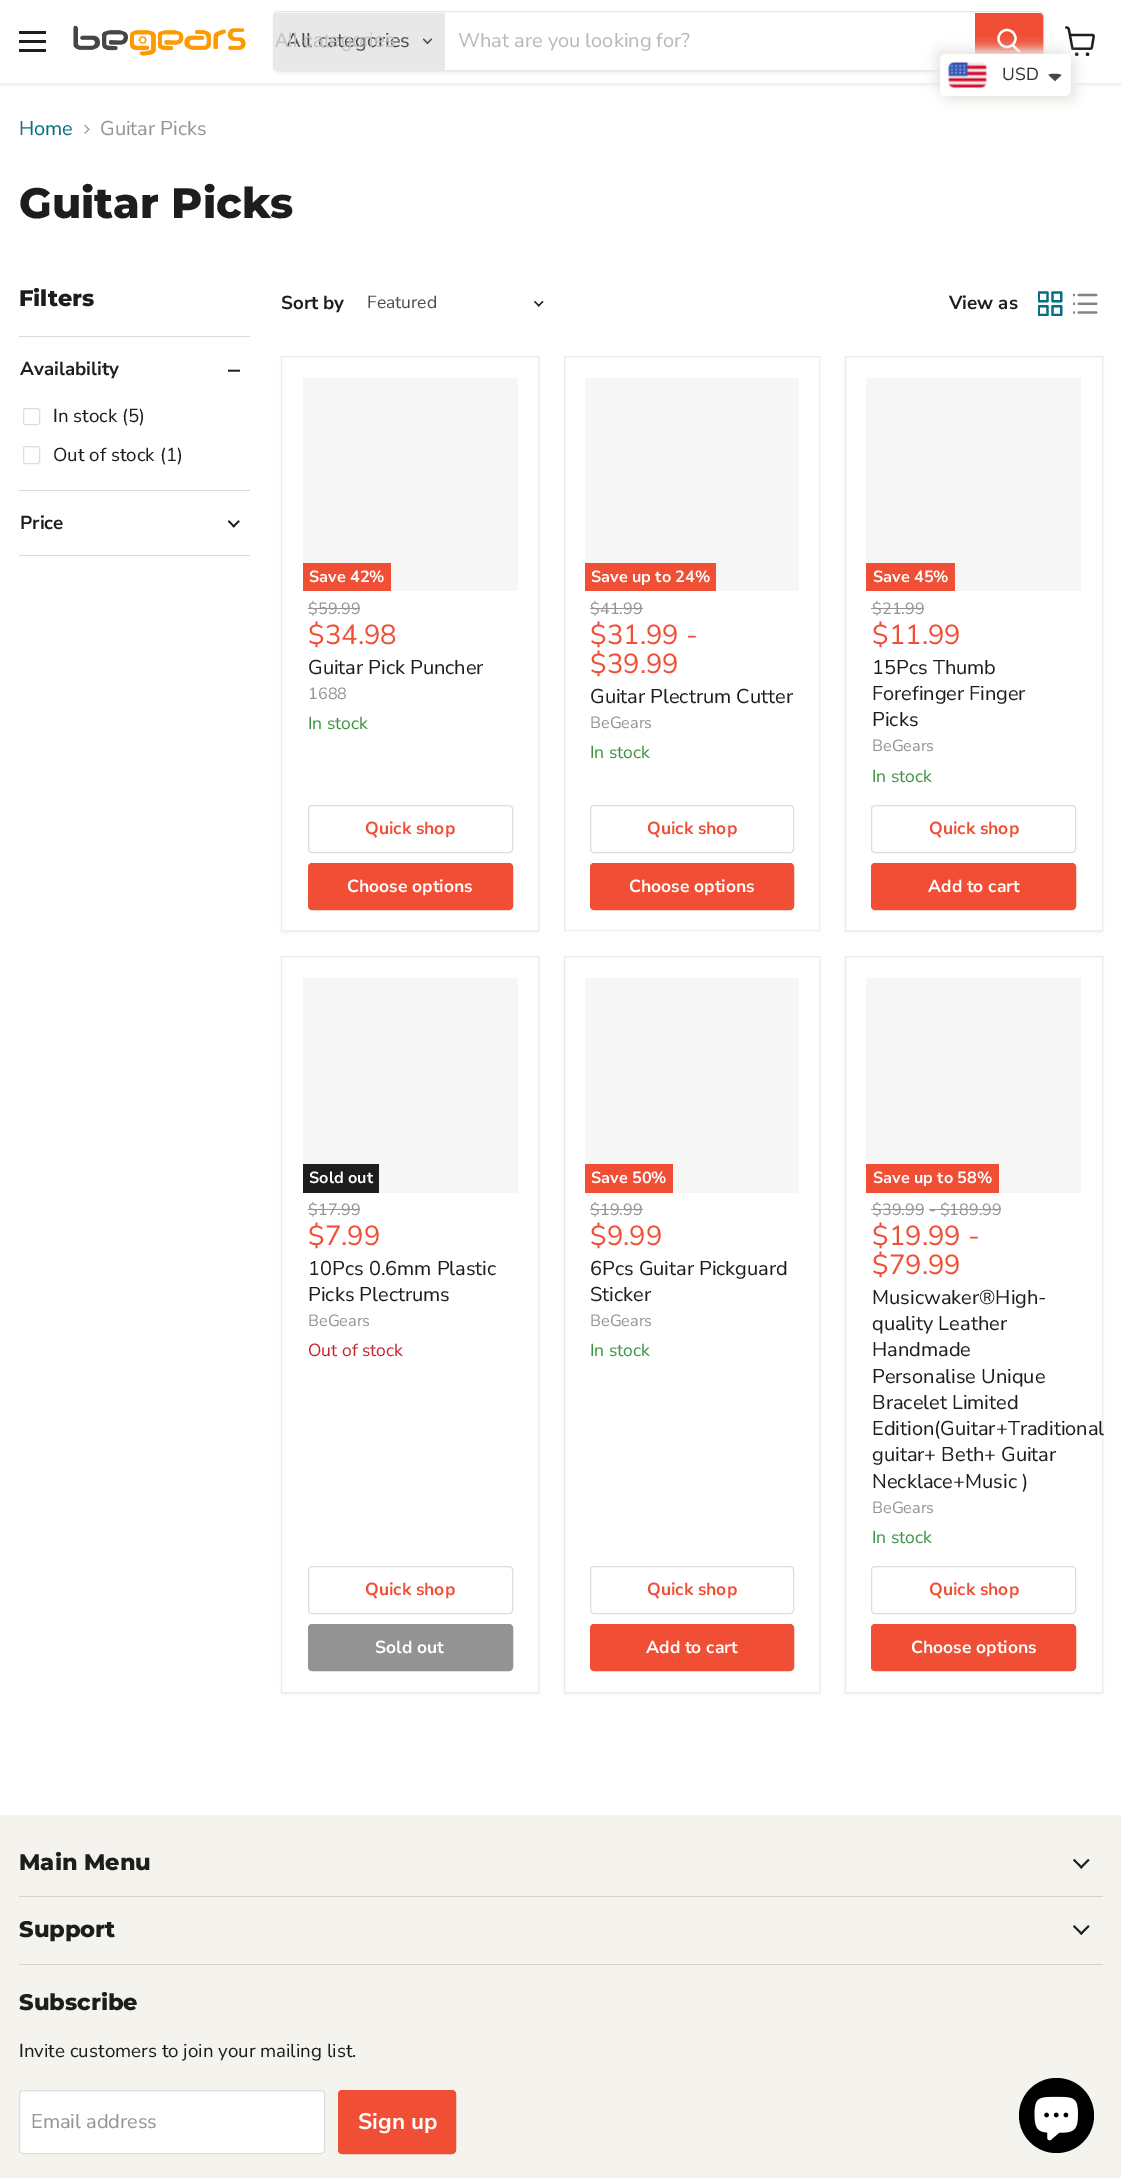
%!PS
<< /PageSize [1121 2178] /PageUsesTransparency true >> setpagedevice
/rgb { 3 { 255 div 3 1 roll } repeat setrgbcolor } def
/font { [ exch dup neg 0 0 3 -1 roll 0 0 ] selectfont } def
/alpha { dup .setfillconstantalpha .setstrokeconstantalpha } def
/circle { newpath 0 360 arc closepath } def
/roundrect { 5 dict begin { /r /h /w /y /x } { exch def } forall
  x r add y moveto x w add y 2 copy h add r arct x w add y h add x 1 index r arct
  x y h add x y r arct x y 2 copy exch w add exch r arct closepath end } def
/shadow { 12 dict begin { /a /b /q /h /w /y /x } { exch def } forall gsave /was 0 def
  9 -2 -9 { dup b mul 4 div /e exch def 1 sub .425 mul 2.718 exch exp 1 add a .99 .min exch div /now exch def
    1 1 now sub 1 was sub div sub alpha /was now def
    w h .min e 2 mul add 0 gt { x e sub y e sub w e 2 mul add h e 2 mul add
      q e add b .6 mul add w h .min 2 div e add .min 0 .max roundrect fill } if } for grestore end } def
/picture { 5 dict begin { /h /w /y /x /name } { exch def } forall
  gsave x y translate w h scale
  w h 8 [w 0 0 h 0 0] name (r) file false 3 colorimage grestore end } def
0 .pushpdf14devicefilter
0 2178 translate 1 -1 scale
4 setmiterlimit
255 255 255 rgb
0 0 1121 2178 rectfill
128 128 128 rgb
0 1 1121 83 0 2.5 0.25 shadow
[
  [0 0 1121 83 255 255 255]
  [19 31 27 3 29 29 29]
  [19 40 27 3 29 29 29]
  [19 49 27 3 29 29 29]
] { aload pop rgb rectfill } forall
(img/1.rgb) 73 25 173 31 picture
gsave
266 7 moveto 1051 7 lineto 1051 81 lineto 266 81 lineto closepath 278 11 moveto 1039 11 lineto 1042 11 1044 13 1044 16 curveto 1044 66 lineto 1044 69 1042 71 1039 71 curveto 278 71 lineto 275 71 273 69 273 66 curveto 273 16 lineto 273 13 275 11 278 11 curveto closepath eoclip newpath
128 128 128 rgb
273 14 771 60 5 2 0.11 shadow
grestore
0.2 alpha
128 128 128 rgb
273.5 11.5 770 59 4.5 roundrect stroke
1 alpha
232 232 232 rgb
278 13 moveto 445 13 lineto 445 70 lineto 278 70 lineto 276 70 274 68 274 66 curveto 274 17 lineto 274 15 276 13 278 13 curveto closepath fill
(img/2.rgb) 423 38 10 7 picture
240 79 54 rgb
975.5 13.5 moveto 1039 13.5 lineto 1041 13.5 1042.5 15 1042.5 17 curveto 1042.5 66 lineto 1042.5 68 1041 69.5 1039 69.5 curveto 975.5 69.5 lineto closepath gsave fill grestore
stroke
255 255 255 rgb
2.2 setlinewidth
1 setlinecap
1019 51.5 moveto 1013 45.5 lineto stroke
0 setlinecap
1007 38.5 8.5 circle stroke
(img/3.rgb) 1065 26 30 30 picture
232 232 226 rgb
935 49 131 42 6 5.5 1 shadow
945 59 131 42 6 5.5 1 shadow
255 255 255 rgb
940 54 131 42 6 roundrect fill
(img/4.rgb) 948 62 39 26 picture
71 73 66 rgb
1051 74 moveto 1053.5 74 1059.5 73.5 1061.5 75 curveto 1055 81 lineto 1048.5 75 lineto 1049 74.5 1050 74 1051 74 curveto closepath fill
(img/5.rgb) 84 124 6 10 picture
217 217 217 rgb
19 336 231 1 rectfill
(img/6.rgb) 228 369 12 3 picture
221 221 221 rgb
1 setlinewidth
23.5 408.5 16 16 2 roundrect stroke
23.5 446.5 16 17 2 roundrect stroke
217 217 217 rgb
19 490 231 1 rectfill
19 555 231 1 rectfill
(img/7.rgb) 228 520 12 8 picture
(img/8.rgb) 534 300 10 7 picture
(img/9.rgb) 1038 291 25 25 picture
(img/10.rgb) 1073 293 25 21 picture
128 128 128 rgb
281 358 258 575 0 2.5 0.11 shadow
255 255 255 rgb
281.5 356.5 moveto 538.5 356.5 lineto 538.5 930.5 lineto 281.5 930.5 lineto closepath gsave fill grestore
235 235 235 rgb
stroke
[
  [303 378 215 213 246 246 246]
  [303 563 88 28 240 79 54]
  [308 608 52 1 148 148 148]
] { aload pop rgb rectfill } forall
221 221 221 rgb
308.5 805.5 204 47 3.5 roundrect stroke
240 79 54 rgb
308.5 863.5 204 46 3.5 roundrect gsave fill grestore
stroke
235 235 235 rgb
564.5 356.5 255 574 rectstroke
[
  [585 378 214 213 246 246 246]
  [585 563 131 28 240 79 54]
  [590 608 53 1 148 148 148]
] { aload pop rgb rectfill } forall
221 221 221 rgb
590.5 805.5 203 47 3.5 roundrect stroke
240 79 54 rgb
590.5 863.5 203 46 3.5 roundrect gsave fill grestore
stroke
128 128 128 rgb
845 358 258 575 0 2.5 0.11 shadow
255 255 255 rgb
845.5 356.5 moveto 1102.5 356.5 lineto 1102.5 930.5 lineto 845.5 930.5 lineto closepath gsave fill grestore
235 235 235 rgb
stroke
[
  [866 378 215 213 246 246 246]
  [866 563 89 28 240 79 54]
  [871 608 53 1 148 148 148]
] { aload pop rgb rectfill } forall
221 221 221 rgb
871.5 805.5 204 47 3.5 roundrect stroke
240 79 54 rgb
871.5 863.5 204 46 3.5 roundrect gsave fill grestore
stroke
128 128 128 rgb
281 958 258 736 0 2.5 0.11 shadow
255 255 255 rgb
281.5 956.5 moveto 538.5 956.5 lineto 538.5 1692.5 lineto 281.5 1692.5 lineto closepath gsave fill grestore
235 235 235 rgb
stroke
[
  [303 978 215 215 246 246 246]
  [303 1164 76 29 29 29 29]
  [308 1209 52 1 148 148 148]
] { aload pop rgb rectfill } forall
221 221 221 rgb
308.5 1566.5 204 47 3.5 roundrect stroke
147 147 147 rgb
308.5 1624.5 204 46 3.5 roundrect gsave fill grestore
stroke
128 128 128 rgb
564 958 256 736 0 2.5 0.11 shadow
255 255 255 rgb
564.5 956.5 moveto 819.5 956.5 lineto 819.5 1692.5 lineto 564.5 1692.5 lineto closepath gsave fill grestore
235 235 235 rgb
stroke
[
  [585 978 214 215 246 246 246]
  [585 1164 88 29 240 79 54]
  [590 1209 53 1 148 148 148]
] { aload pop rgb rectfill } forall
221 221 221 rgb
590.5 1566.5 203 47 3.5 roundrect stroke
240 79 54 rgb
590.5 1624.5 203 46 3.5 roundrect gsave fill grestore
stroke
128 128 128 rgb
845 958 258 736 0 2.5 0.11 shadow
255 255 255 rgb
845.5 956.5 moveto 1102.5 956.5 lineto 1102.5 1692.5 lineto 845.5 1692.5 lineto closepath gsave fill grestore
235 235 235 rgb
stroke
[
  [866 978 215 215 246 246 246]
  [866 1164 133 29 240 79 54]
  [871 1209 53 1 148 148 148]
  [929 1209 72 1 148 148 148]
] { aload pop rgb rectfill } forall
221 221 221 rgb
871.5 1566.5 204 47 3.5 roundrect stroke
240 79 54 rgb
871.5 1624.5 204 46 3.5 roundrect gsave fill grestore
stroke
245 243 237 rgb
0 1815 1121 363 rectfill
213 211 206 rgb
19 1896 1084 1 rectfill
(img/11.rgb) 1073 1859 17 10 picture
19 1964 1084 1 rectfill
(img/12.rgb) 1073 1925 17 10 picture
255 255 255 rgb
19.5 2090.5 305 63 3.5 roundrect gsave fill grestore
221 221 221 rgb
stroke
240 79 54 rgb
338.5 2090.5 117 63 3.5 roundrect gsave fill grestore
stroke
0 0 0 rgb
1056.5 2115.5 37.5 circle fill
(img/13.rgb) 1034 2096 44 45 picture
/NunitoSans-Regular 20 font
77 77 77 rgb
286 47 moveto (All categories) show
/LiberationSans-Regular 20 font
195 195 195 rgb
275 47 moveto (All categories) show
/NunitoSans-Regular 20 font
184 184 184 rgb
458 47 moveto (What are you looking for?) show
/NunitoSans-Regular 17.5 font
51 51 51 rgb
1002 80 moveto (USD) show
/NunitoSans-Regular 20 font
4 110 130 rgb
19 135 moveto (Home) show
148 148 148 rgb
100 135 moveto (Guitar Picks) show
/Montserrat-ExtraBold 42.5 font
29 29 29 rgb
19 218 moveto (Guitar Picks) show
/Montserrat-ExtraBold 22.5 font
19 306 moveto (Filters) show
/NunitoSans-Bold 18.75 font
20 375 moveto (Availability) show
/NunitoSans-Regular 18.75 font
53 422 moveto (In stock \(5\)) show
53 461 moveto (Out of stock \(1\)) show
/NunitoSans-Bold 18.75 font
20 529 moveto (Price) show
281 309 moveto (Sort by) show
/NunitoSans-Regular 17.5 font
77 77 77 rgb
367 308 moveto (Featured) show
/NunitoSans-Bold 18.75 font
29 29 29 rgb
949 309 moveto (View as) show
/NunitoSans-Bold 16.25 font
255 255 255 rgb
309 582 moveto (Save 42%) show
/NunitoSans-Regular 16.25 font
148 148 148 rgb
308 614 moveto ($59.99) show
/NunitoSans-Regular 27.5 font
240 79 54 rgb
308 644 moveto ($34.98) show
/NunitoSans-Regular 20 font
29 29 29 rgb
308 674 moveto (Guitar Pick Puncher) show
/NunitoSans-Regular 16.25 font
148 148 148 rgb
308 699 moveto (1688) show
/NunitoSans-Regular 17.5 font
60 147 66 rgb
308 729 moveto (In stock) show
/NunitoSans-Bold 17.5 font
240 79 54 rgb
365 834 moveto (Quick shop) show
255 255 255 rgb
347 892 moveto (Choose options) show
/NunitoSans-Bold 16.25 font
591 582 moveto (Save up to 24%) show
/NunitoSans-Regular 16.25 font
148 148 148 rgb
590 614 moveto ($41.99) show
/NunitoSans-Regular 27.5 font
240 79 54 rgb
590 644 moveto ($31.99 -) show
590 673 moveto ($39.99) show
/NunitoSans-Regular 20 font
29 29 29 rgb
590 703 moveto (Guitar Plectrum Cutter) show
/NunitoSans-Regular 16.25 font
148 148 148 rgb
590 728 moveto (BeGears) show
/NunitoSans-Regular 17.5 font
60 147 66 rgb
590 758 moveto (In stock) show
/NunitoSans-Bold 17.5 font
240 79 54 rgb
647 834 moveto (Quick shop) show
255 255 255 rgb
629 892 moveto (Choose options) show
/NunitoSans-Bold 16.25 font
873 582 moveto (Save 45%) show
/NunitoSans-Regular 16.25 font
148 148 148 rgb
872 614 moveto ($21.99) show
/NunitoSans-Regular 27.5 font
240 79 54 rgb
872 644 moveto ($11.99) show
/NunitoSans-Regular 20 font
29 29 29 rgb
[
  [(15Pcs Thumb) 872 674]
  [(Forefinger Finger) 872 700]
  [(Picks) 872 726]
] { aload pop moveto show } forall
/NunitoSans-Regular 16.25 font
148 148 148 rgb
872 751 moveto (BeGears) show
/NunitoSans-Regular 17.5 font
60 147 66 rgb
872 782 moveto (In stock) show
/NunitoSans-Bold 17.5 font
240 79 54 rgb
929 834 moveto (Quick shop) show
255 255 255 rgb
928 892 moveto (Add to cart) show
/NunitoSans-Bold 16.25 font
309 1183 moveto (Sold out) show
/NunitoSans-Regular 16.25 font
148 148 148 rgb
308 1215 moveto ($17.99) show
/NunitoSans-Regular 27.5 font
240 79 54 rgb
308 1245 moveto ($7.99) show
/NunitoSans-Regular 20 font
29 29 29 rgb
308 1275 moveto (10Pcs 0.6mm Plastic) show
308 1301 moveto (Picks Plectrums) show
/NunitoSans-Regular 16.25 font
148 148 148 rgb
308 1326 moveto (BeGears) show
/NunitoSans-Regular 17.5 font
191 38 47 rgb
308 1356 moveto (Out of stock) show
/NunitoSans-Bold 17.5 font
240 79 54 rgb
365 1595 moveto (Quick shop) show
255 255 255 rgb
375 1653 moveto (Sold out) show
/NunitoSans-Bold 16.25 font
591 1183 moveto (Save 50%) show
/NunitoSans-Regular 16.25 font
148 148 148 rgb
590 1215 moveto ($19.99) show
/NunitoSans-Regular 27.5 font
240 79 54 rgb
590 1245 moveto ($9.99) show
/NunitoSans-Regular 20 font
29 29 29 rgb
590 1275 moveto (6Pcs Guitar Pickguard) show
590 1301 moveto (Sticker) show
/NunitoSans-Regular 16.25 font
148 148 148 rgb
590 1326 moveto (BeGears) show
/NunitoSans-Regular 17.5 font
60 147 66 rgb
590 1356 moveto (In stock) show
/NunitoSans-Bold 17.5 font
240 79 54 rgb
647 1595 moveto (Quick shop) show
255 255 255 rgb
646 1653 moveto (Add to cart) show
/NunitoSans-Bold 16.25 font
873 1183 moveto (Save up to 58%) show
/NunitoSans-Regular 16.25 font
148 148 148 rgb
872 1215 moveto ($39.99 - $189.99) show
/NunitoSans-Regular 27.5 font
240 79 54 rgb
872 1245 moveto ($19.99 -) show
872 1274 moveto ($79.99) show
/NunitoSans-Regular 20 font
29 29 29 rgb
[
  [(Musicwaker®High-) 872 1304]
  [(quality Leather) 872 1330]
  [(Handmade) 872 1356]
  [(Personalise Unique) 872 1383]
  [(Bracelet Limited) 872 1409]
  [(Edition\(Guitar+Traditional) 872 1435]
  [(guitar+ Beth+ Guitar) 872 1461]
  [(Necklace+Music \)) 872 1488]
] { aload pop moveto show } forall
/NunitoSans-Regular 16.25 font
148 148 148 rgb
872 1513 moveto (BeGears) show
/NunitoSans-Regular 17.5 font
60 147 66 rgb
872 1543 moveto (In stock) show
/NunitoSans-Bold 17.5 font
240 79 54 rgb
929 1595 moveto (Quick shop) show
255 255 255 rgb
911 1653 moveto (Choose options) show
/Montserrat-ExtraBold 22.5 font
29 29 29 rgb
[
  [(Main Menu) 19 1870]
  [(Support) 19 1937]
  [(Subscribe) 19 2010]
] { aload pop moveto show } forall
/NunitoSans-Regular 18.75 font
19 2057 moveto (Invite customers to join your mailing list.) show
/NunitoSans-Regular 20 font
148 148 148 rgb
31 2128 moveto (Email address) show
/NunitoSans-Bold 22.5 font
255 255 255 rgb
358 2129 moveto (Sign up) show
.poppdf14devicefilter showpage
